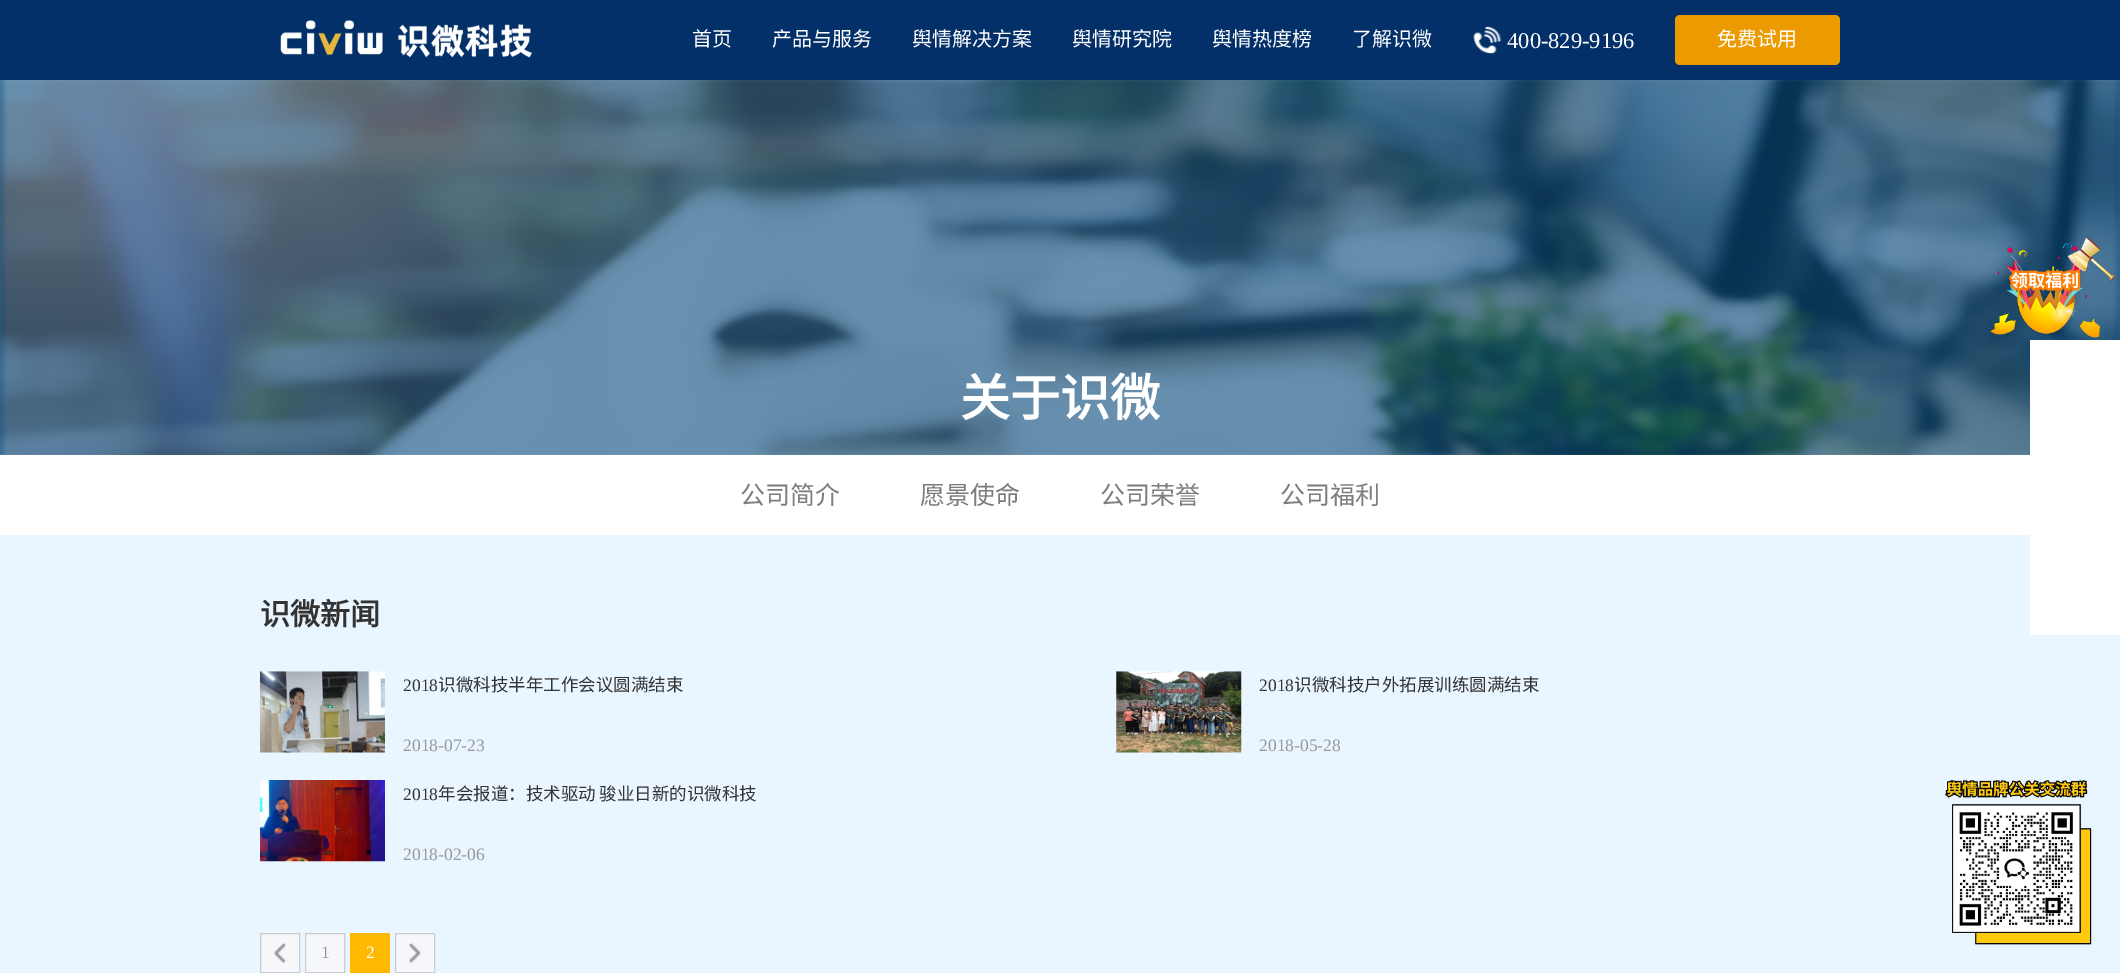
%!PS
<< /PageSize [2120 973] >> setpagedevice
/rgb { 3 { 255 div 3 1 roll } repeat setrgbcolor } def
/font { [ exch dup neg 0 0 3 -1 roll 0 0 ] selectfont } def
/roundrect { 5 dict begin { /r /h /w /y /x } { exch def } forall
  x r add y moveto x w add y 2 copy h add r arct x w add y h add x 1 index r arct
  x y h add x y r arct x y 2 copy exch w add exch r arct closepath end } def
/picture { 5 dict begin { /h /w /y /x /name } { exch def } forall
  gsave x y translate w h scale
  w h 8 [w 0 0 h 0 0] name (r) file false 3 colorimage grestore end } def
0 973 translate 1 -1 scale
4 setmiterlimit
233 245 255 rgb
0 0 2120 973 rectfill
3 48 104 rgb
0 0 2120 80 rectfill
(img/1.rgb) 280 20 252 38 picture
(img/2.rgb) 1473 26 29 28 picture
235 155 0 rgb
1675 15 165 50 5 roundrect fill
(img/3.rgb) 0 80 2120 375 picture
255 255 255 rgb
0 455 2030 80 rectfill
(img/4.rgb) 260 671 125 82 picture
(img/5.rgb) 1116 671 126 82 picture
(img/6.rgb) 260 780 125 82 picture
246 247 251 rgb
261 934 38 38 rectfill
(img/7.rgb) 273 943 13 20 picture
203 204 207 rgb
260.5 933.5 39 39 rectstroke
246 247 251 rgb
305.5 933.5 moveto 344.5 933.5 lineto 344.5 972.5 lineto 305.5 972.5 lineto closepath gsave fill grestore
203 204 207 rgb
stroke
255 185 0 rgb
350 933 40 40 rectfill
246 247 251 rgb
396 934 38 38 rectfill
(img/8.rgb) 408 943 13 20 picture
203 204 207 rgb
395.5 933.5 39 39 rectstroke
(img/9.rgb) 1990 237 125 101 picture
255 255 255 rgb
2030 340 90 295 rectfill
(img/10.rgb) 1944 780 148 165 picture
/NotoSansCJKSC-Regular 20 font
[
  [(首页) 692 46]
  [(产品与服务) 772 46]
  [(舆情解决方案) 912 46]
  [(舆情研究院) 1072 46]
  [(舆情热度榜) 1212 46]
  [(了解识微) 1352 46]
] { aload pop moveto show } forall
/LiberationSerif-Regular 22.5 font
1507 48 moveto (400-829-9196) show
/NotoSansCJKSC-Regular 20 font
1717 46 moveto (免费试用) show
/NotoSansCJKSC-Bold 50 font
960 416 moveto (关于识微) show
/NotoSansCJKSC-Regular 25 font
125 125 125 rgb
[
  [(公司简介) 740 504]
  [(愿景使命) 920 504]
  [(公司荣誉) 1100 504]
  [(公司福利) 1280 504]
] { aload pop moveto show } forall
/NotoSansCJKSC-Bold 30 font
51 51 51 rgb
260 625 moveto (识微新闻) show
/LiberationSerif-Regular 17.5 font
403 691 moveto (2018) show
/NotoSansCJKSC-Regular 17.5 font
438 691 moveto (识微科技半年工作会议圆满结束) show
/LiberationSerif-Regular 17.5 font
152 152 152 rgb
403 751 moveto (2018-07-23) show
51 51 51 rgb
1259 691 moveto (2018) show
/NotoSansCJKSC-Regular 17.5 font
1294 691 moveto (识微科技户外拓展训练圆满结束) show
/LiberationSerif-Regular 17.5 font
152 152 152 rgb
1259 751 moveto (2018-05-28) show
51 51 51 rgb
403 800 moveto (2018) show
/NotoSansCJKSC-Regular 17.5 font
438 800 moveto (年会报道：技术驱动 骏业日新的识微科技) show
/LiberationSerif-Regular 17.5 font
152 152 152 rgb
403 860 moveto (2018-02-06) show
321 958 moveto (1) show
255 255 255 rgb
366 958 moveto (2) show
showpage
